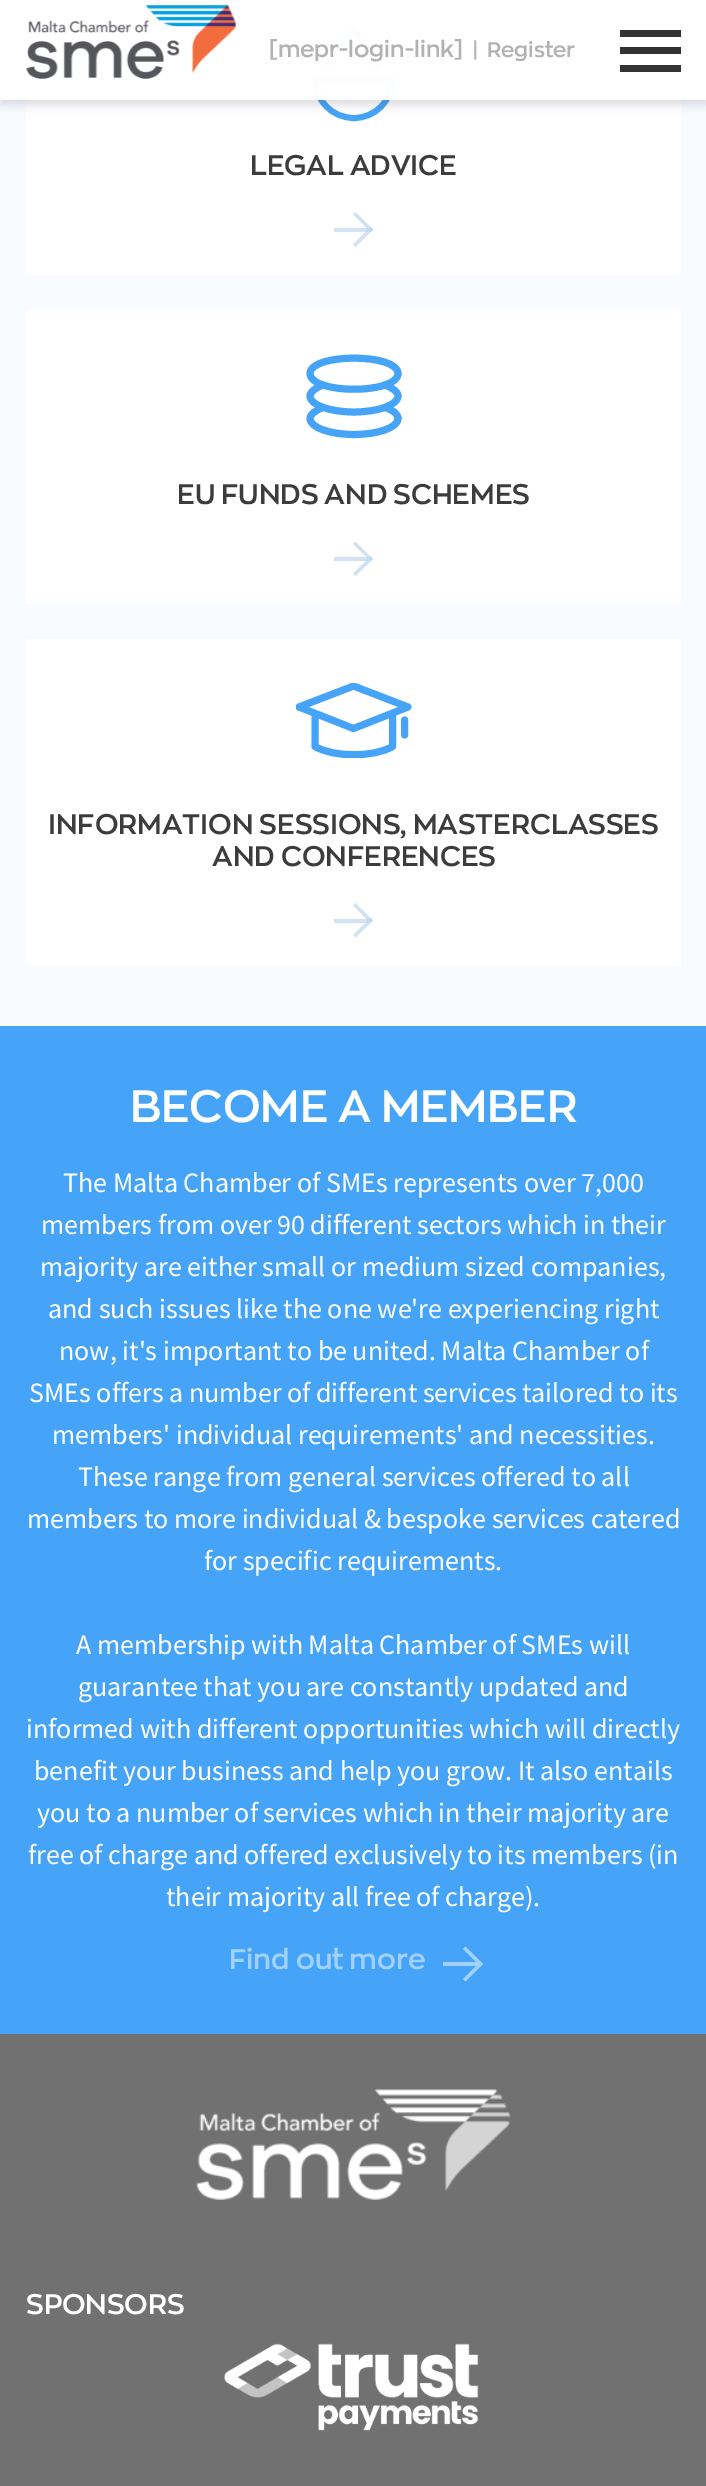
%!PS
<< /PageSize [706 2486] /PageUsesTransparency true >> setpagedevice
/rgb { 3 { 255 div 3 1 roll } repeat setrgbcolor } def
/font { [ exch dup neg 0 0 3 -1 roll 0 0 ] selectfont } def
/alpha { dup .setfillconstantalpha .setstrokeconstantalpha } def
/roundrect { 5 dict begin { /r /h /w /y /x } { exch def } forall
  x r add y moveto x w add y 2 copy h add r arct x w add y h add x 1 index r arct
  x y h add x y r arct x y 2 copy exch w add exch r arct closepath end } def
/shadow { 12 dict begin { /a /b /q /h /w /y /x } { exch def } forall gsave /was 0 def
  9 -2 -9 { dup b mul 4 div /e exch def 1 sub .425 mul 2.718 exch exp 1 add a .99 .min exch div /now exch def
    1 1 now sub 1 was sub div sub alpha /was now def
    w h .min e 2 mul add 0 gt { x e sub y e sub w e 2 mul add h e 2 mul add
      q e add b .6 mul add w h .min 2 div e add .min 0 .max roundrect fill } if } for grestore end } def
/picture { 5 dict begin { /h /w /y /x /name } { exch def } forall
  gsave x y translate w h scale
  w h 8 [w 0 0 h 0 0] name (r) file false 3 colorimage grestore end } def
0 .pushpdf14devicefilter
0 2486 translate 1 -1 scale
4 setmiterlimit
248 251 255 rgb
0 0 706 2486 rectfill
255 255 255 rgb
26 0 655 275 rectfill
69 164 247 rgb
5.9 setlinewidth
1 setlinecap
1 setlinejoin
327.5 66 moveto 353.5 28.5 lineto 377.5 66 lineto stroke
392 80 moveto 392 101 375 118 354 118 curveto 332.5 118 315.5 101 315.5 80 curveto closepath stroke
gsave
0 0 moveto 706 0 lineto 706 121 lineto 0 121 lineto closepath 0 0 moveto 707 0 lineto 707 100 lineto 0 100 lineto closepath eoclip newpath
71 71 95 rgb
0 5 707 100 0 5 0.2 shadow
grestore
0.98 alpha
255 255 255 rgb
0 0 706 100 rectfill
1 alpha
(img/1.rgb) 26 5 211 74 picture
[
  [620 65 61 7 51 51 51]
  [620 47 61 7 51 51 51]
  [620 30 61 7 51 51 51]
  [334 228 34 4 210 227 243]
] { aload pop rgb rectfill } forall
0.5 alpha
164 199 230 rgb
355.5 212 moveto 373 229.5 lineto 370.5 232 lineto 353 214.5 lineto closepath fill
370.5 227 moveto 373 229.5 lineto 355.5 247 lineto 353 244.5 lineto closepath fill
1 alpha
255 255 255 rgb
26 310 655 294 rectfill
69 164 247 rgb
7 setlinewidth
385 407.5 moveto 393 410 398 414 398 418.5 curveto 398 427.5 378 434.5 354 434.5 curveto 330 434.5 310 427.5 310 418.5 curveto 310 414.5 315 410.5 323 407.5 curveto stroke
385 385 moveto 393 388 398 392 398 396 curveto 398 405 378 412 354 412 curveto 330 412 310 405 310 396 curveto 310 392 315 388 323 385 curveto stroke
310 373.5 moveto 310 353 398 353 398 373.5 curveto 398 394.5 310 394.5 310 373.5 curveto closepath stroke
210 227 243 rgb
334 557 34 4 rectfill
0.5 alpha
164 199 230 rgb
355.5 541.5 moveto 373 559 lineto 370.5 561 lineto 353 544 lineto closepath fill
370.5 556.5 moveto 373 559 lineto 355.5 576 lineto 353 573.5 lineto closepath fill
1 alpha
255 255 255 rgb
26 639 655 327 rectfill
69 164 247 rgb
404.5 720 moveto 404.5 735 lineto stroke
gsave
296 683 117 75 rectclip
353.5 686 moveto 299 707 lineto 353.5 728.5 lineto 408 707 lineto closepath stroke
315 715.5 moveto 315 746.5 lineto 333.5 757.5 374 757.5 392.5 746.5 curveto 392.5 715.5 lineto stroke
grestore
210 227 243 rgb
334 919 34 4 rectfill
0.5 alpha
164 199 230 rgb
355.5 903 moveto 373 920.5 lineto 370.5 923 lineto 353 905.5 lineto closepath fill
370.5 918 moveto 373 920.5 lineto 355.5 937.5 lineto 353 935 lineto closepath fill
1 alpha
69 164 247 rgb
0 1026 706 1008 rectfill
162 210 251 rgb
443 1962 35 4 rectfill
465.5 1946.5 moveto 483 1964 lineto 480.5 1966.5 lineto 463 1949 lineto closepath fill
480.5 1961.5 moveto 483 1964 lineto 465.5 1981.5 lineto 463 1979 lineto closepath fill
113 113 113 rgb
0 2034 706 452 rectfill
(img/2.rgb) 196 2089 315 111 picture
(img/3.rgb) 224 2343 255 88 picture
/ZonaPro-SemiBold 22.75 font
178 178 178 rgb
269 57 moveto ([mepr-login-link]) show
/ZonaPro-SemiBold 21 font
472 57 moveto (|) show
487 57 moveto (Register) show
/ZonaPro-SemiBold 28 font
60 60 60 rgb
[
  [(LEGAL ADVICE) 250 175]
  [(EU FUNDS AND SCHEMES) 177 504]
  [(INFORMATION SESSIONS, MASTERCLASSES) 48 834]
  [(AND CONFERENCES) 212 866]
] { aload pop moveto show } forall
/ZonaPro-SemiBold 44.75 font
255 255 255 rgb
130 1122 moveto (BECOME A MEMBER) show
/SourceSansPro-Regular 28 font
[
  [(The Malta Chamber of SMEs represents over 7,000) 63 1192]
  [(members from over 90 different sectors which in their) 41 1234]
  [(majority are either small or medium sized companies,) 40 1276]
  [(and such issues like the one we're experiencing right) 48 1318]
  [(now, it's important to be united. Malta Chamber of) 59 1360]
  [(SMEs offers a number of different services tailored to its) 29 1402]
  [(members' individual requirements' and necessities.) 52 1444]
  [(These range from general services offered to all) 78 1486]
  [(members to more individual & bespoke services catered) 27 1528]
  [(for specific requirements.) 204 1570]
  [(A membership with Malta Chamber of SMEs will) 76 1654]
  [(guarantee that you are constantly updated and) 78 1696]
  [(informed with different opportunities which will directly) 26 1738]
  [(benefit your business and help you grow. It also entails) 34 1780]
  [(you to a number of services which in their majority are) 37 1822]
  [(free of charge and offered exclusively to its members \(in) 28 1864]
  [(their majority all free of charge\).) 166 1906]
] { aload pop moveto show } forall
/ZonaPro-SemiBold 28 font
162 210 251 rgb
229 1969 moveto (Find out more) show
255 255 255 rgb
26 2314 moveto (SPONSORS) show
.poppdf14devicefilter showpage
